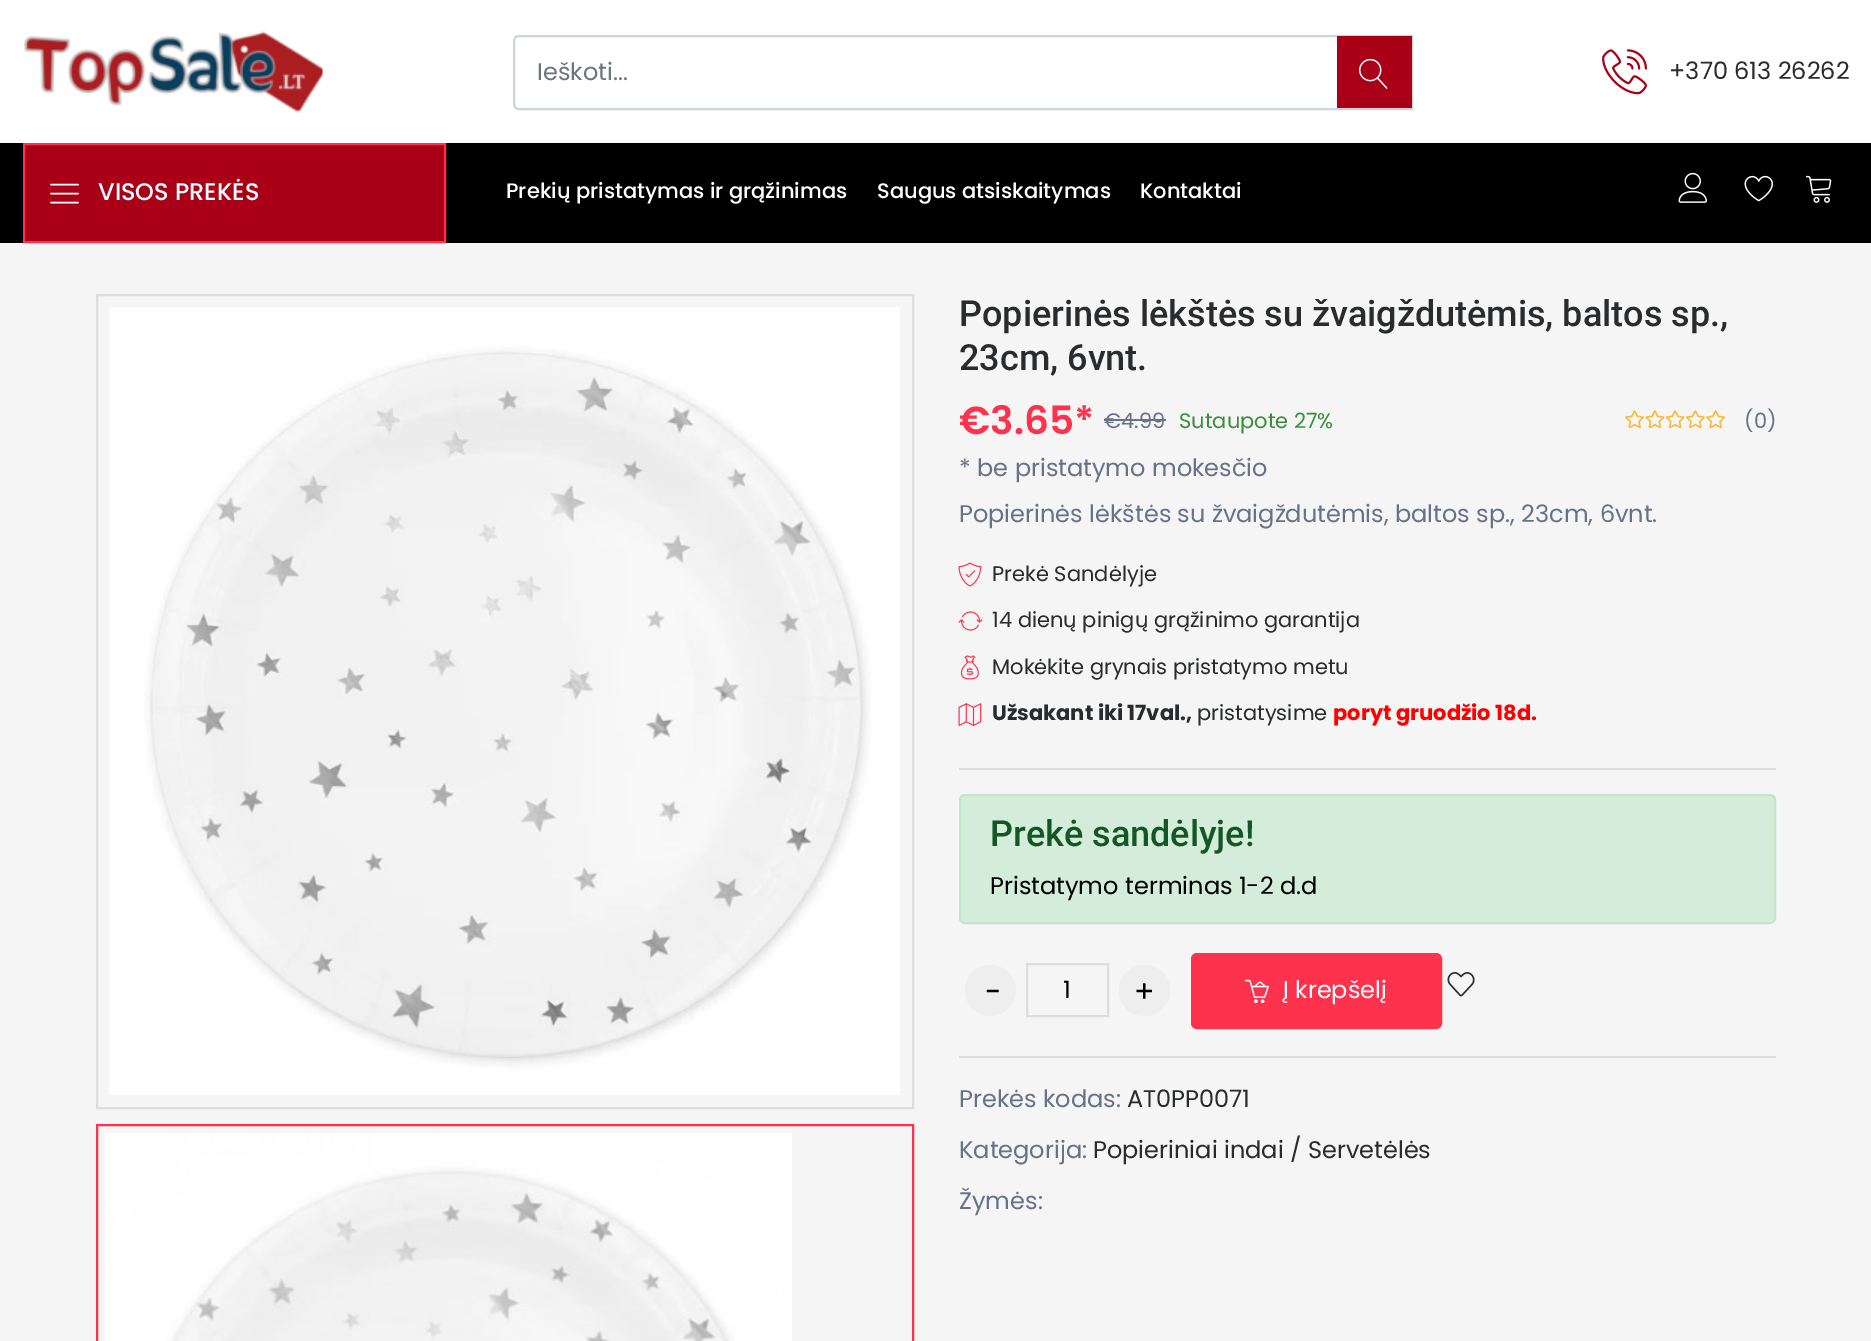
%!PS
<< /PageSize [1871 1341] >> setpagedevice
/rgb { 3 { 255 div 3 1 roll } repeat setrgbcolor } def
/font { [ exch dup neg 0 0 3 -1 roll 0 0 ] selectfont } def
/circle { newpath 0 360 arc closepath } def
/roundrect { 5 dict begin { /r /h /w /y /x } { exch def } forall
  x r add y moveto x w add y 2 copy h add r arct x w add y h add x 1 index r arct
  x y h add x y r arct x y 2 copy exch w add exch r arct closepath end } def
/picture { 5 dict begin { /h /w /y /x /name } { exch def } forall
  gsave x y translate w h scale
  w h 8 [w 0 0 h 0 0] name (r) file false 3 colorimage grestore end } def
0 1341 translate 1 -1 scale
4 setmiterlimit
245 245 245 rgb
0 0 1871 1341 rectfill
255 255 255 rgb
0 0 1871 143 rectfill
(img/1.rgb) 23 31 300 82 picture
206 212 218 rgb
2 setlinewidth
519 36 moveto 1412 36 lineto 1412 109 lineto 519 109 lineto 516 109 514 107 514 104 curveto 514 41 lineto 514 38 516 36 519 36 curveto closepath stroke
170 0 23 rgb
1337 36 75 72 rectfill
(img/2.rgb) 1359 58 29 31 picture
(img/3.rgb) 1602 49 45 46 picture
0 0 0 rgb
0 143 1871 100 rectfill
170 0 23 rgb
24 144 moveto 445 144 lineto 445 242 lineto 24 242 lineto closepath gsave fill grestore
255 50 77 rgb
stroke
(img/4.rgb) 50 183 29 21 picture
(img/5.rgb) 1678 172 29 31 picture
(img/6.rgb) 1744 175 29 27 picture
(img/7.rgb) 1806 175 26 28 picture
221 221 221 rgb
97 295 816 813 rectstroke
(img/8.rgb) 109 307 791 788 picture
255 50 77 rgb
97 1125 816 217 rectstroke
(img/9.rgb) 105 1132 687 209 picture
104 113 136 rgb
1104 419 62 2 rectfill
(img/10.rgb) 1625 410 100 19 picture
(img/11.rgb) 958 562 24 25 picture
(img/12.rgb) 958 611 25 20 picture
(img/13.rgb) 960 655 19 25 picture
(img/14.rgb) 958 703 24 23 picture
221 221 221 rgb
959 768 817 2 rectfill
212 237 218 rgb
960 795 815 128 5 roundrect gsave fill grestore
195 230 203 rgb
stroke
238 238 238 rgb
990.5 990.5 25.5 circle fill
221 221 221 rgb
1027 964 81 52 rectstroke
238 238 238 rgb
1144.5 990.5 25.5 circle fill
255 50 77 rgb
1192 954 249 74 5 roundrect stroke
1198 954 moveto 1319 954 lineto 1319 1028 lineto 1198 1028 lineto 1195 1028 1193 1026 1193 1023 curveto 1193 959 lineto 1193 956 1195 954 1198 954 curveto closepath fill
1314 954 moveto 1435 954 lineto 1438 954 1440 956 1440 959 curveto 1440 1023 lineto 1440 1026 1438 1028 1435 1028 curveto 1314 1028 lineto closepath fill
(img/15.rgb) 1245 979 24 25 picture
(img/16.rgb) 1447 972 28 25 picture
221 221 221 rgb
959 1056 817 2 rectfill
/Poppins-Regular 24 font
108 117 125 rgb
537 80 moveto (Ieškoti...) show
41 43 44 rgb
1669 79 moveto (+370 613 26262) show
/Poppins-Medium 24 font
255 255 255 rgb
98 200 moveto (VISOS PREKĖS) show
/Poppins-Medium 21 font
[
  [(Prekių pristatymas ir grąžinimas) 506 198]
  [(Saugus atsiskaitymas) 877 198]
  [(Kontaktai) 1140 198]
] { aload pop moveto show } forall
/Roboto-Medium 36 font
41 43 44 rgb
959 326 moveto (Popierinės lėkštės su žvaigždutėmis, baltos sp.,) show
959 370 moveto (23cm, 6vnt.) show
/Poppins-SemiBold 39 font
255 50 77 rgb
959 434 moveto (€3.65*) show
/Poppins-Regular 21 font
104 113 136 rgb
1104 428 moveto (€4.99) show
56 142 60 rgb
1179 428 moveto (Sutaupote 27%) show
/Poppins-Regular 24 font
104 113 136 rgb
959 476 moveto (* be pristatymo mokesčio) show
/Poppins-Regular 21 font
1744 428 moveto (\(0\)) show
/Poppins-Regular 24 font
959 522 moveto (Popierinės lėkštės su žvaigždutėmis, baltos sp., 23cm, 6vnt.) show
/Poppins-Regular 21 font
41 43 44 rgb
[
  [(Prekė Sandėlyje) 992 581]
  [(14 dienų pinigų grąžinimo garantija) 992 627]
  [(Mokėkite grynais pristatymo metu) 992 674]
] { aload pop moveto show } forall
/Poppins-Bold 21 font
992 720 moveto (Užsakant iki 17val.,) show
/Poppins-Regular 21 font
1197 720 moveto (pristatysime) show
/Poppins-Bold 21 font
255 0 0 rgb
1333 720 moveto (poryt gruodžio 18d.) show
/Roboto-Medium 36 font
21 87 36 rgb
990 846 moveto (Prekė sandėlyje!) show
/Poppins-Regular 24 font
0 0 0 rgb
990 894 moveto (Pristatymo terminas 1-2 d.d) show
/Poppins-Regular 30 font
985 1002 moveto (-) show
/Poppins-Regular 24 font
1063 998 moveto (1) show
/Poppins-Regular 30 font
1134 1002 moveto (+) show
/Poppins-Regular 24 font
255 255 255 rgb
1283 998 moveto (Į krepšelį) show
104 113 136 rgb
959 1107 moveto (Prekės kodas:) show
41 43 44 rgb
1127 1107 moveto (AT0PP0071) show
104 113 136 rgb
959 1158 moveto (Kategorija:) show
41 43 44 rgb
1093 1158 moveto (Popieriniai indai / Servetėlės) show
104 113 136 rgb
959 1209 moveto (Žymės:) show
showpage
